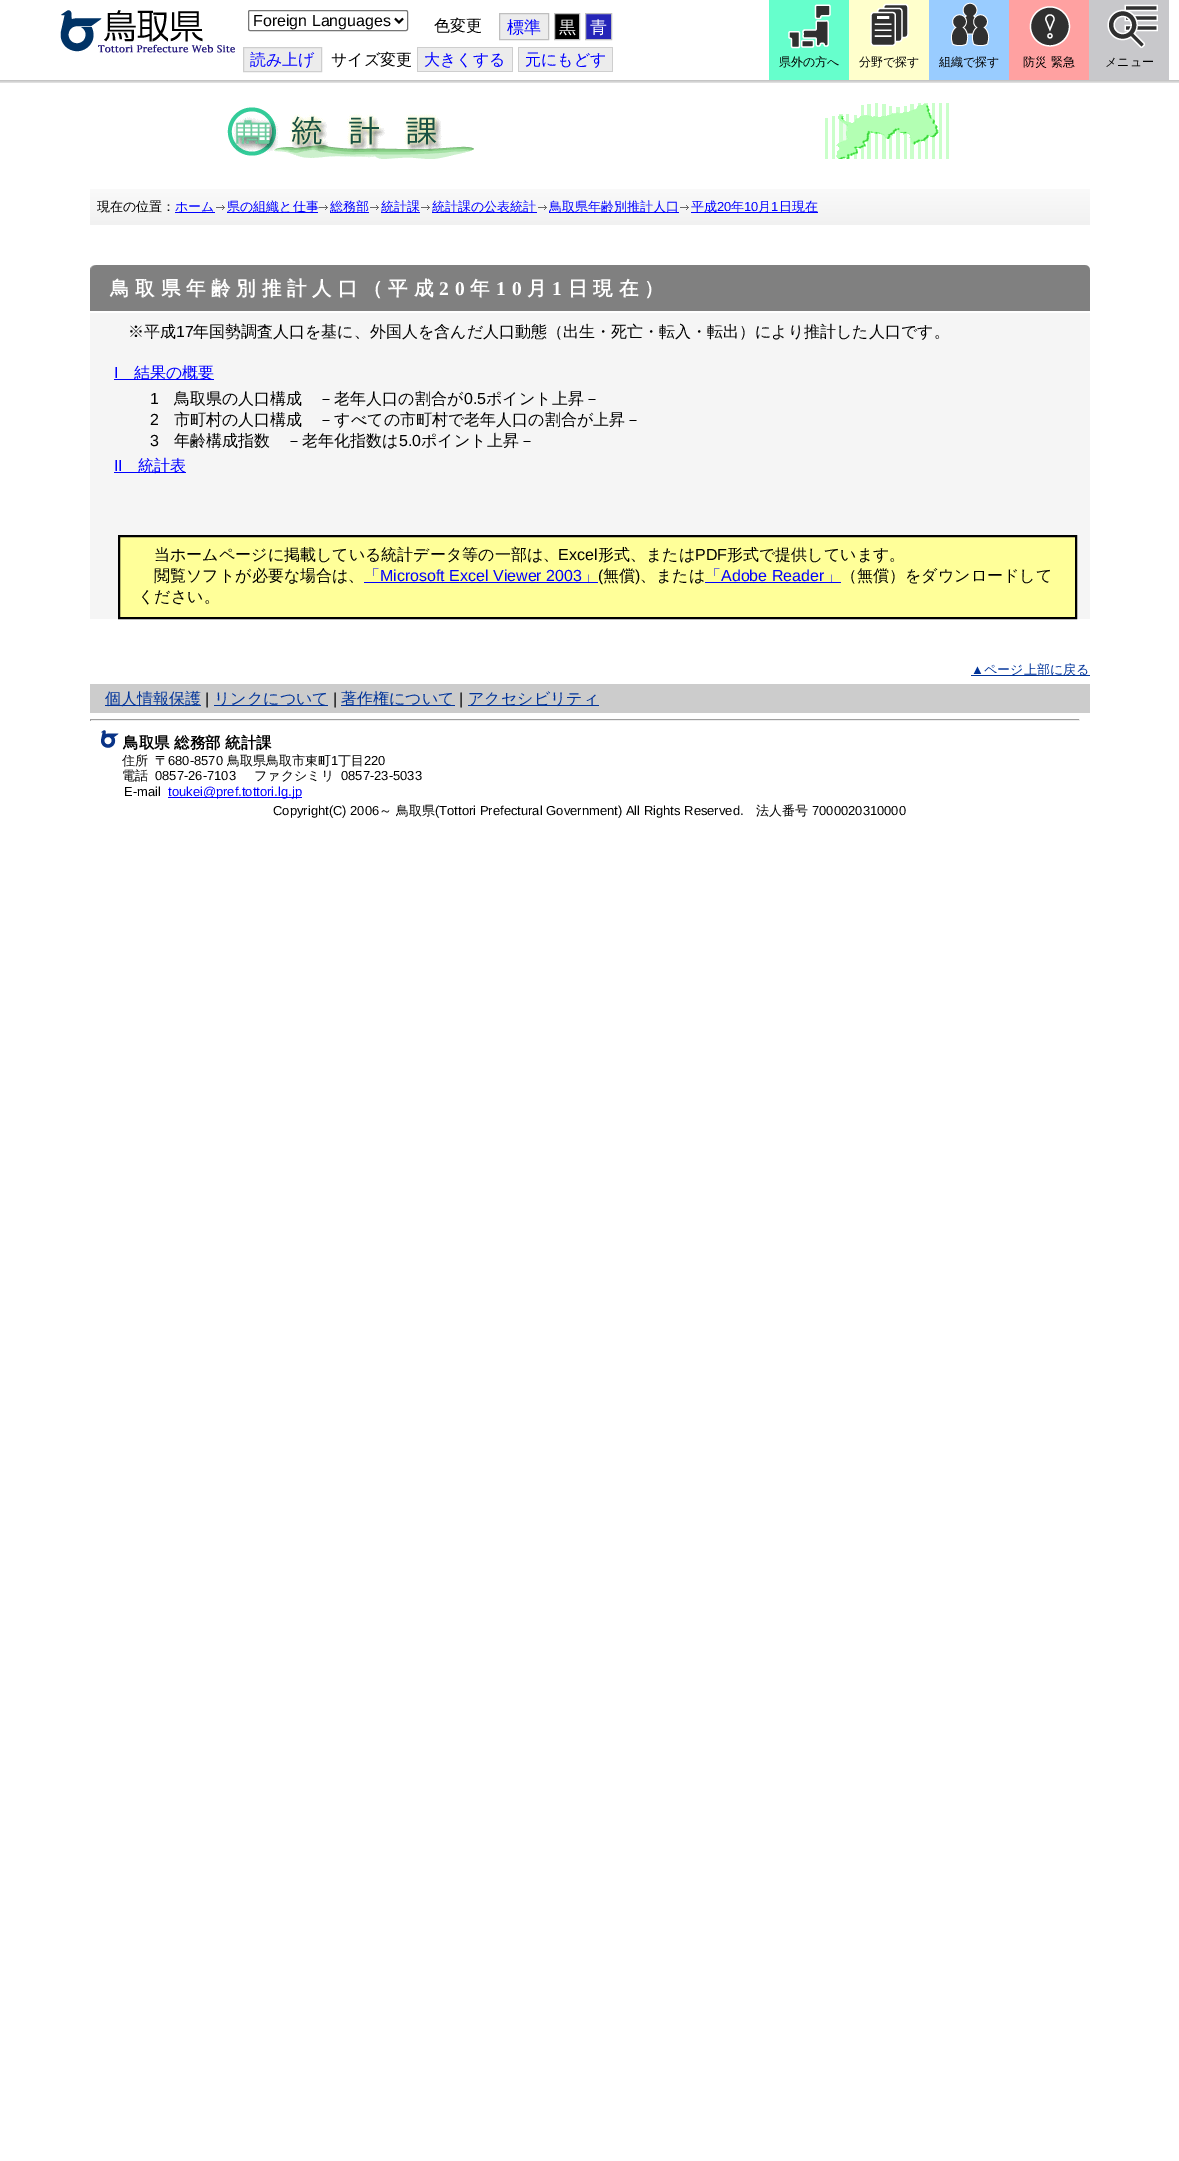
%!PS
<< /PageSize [1179 2161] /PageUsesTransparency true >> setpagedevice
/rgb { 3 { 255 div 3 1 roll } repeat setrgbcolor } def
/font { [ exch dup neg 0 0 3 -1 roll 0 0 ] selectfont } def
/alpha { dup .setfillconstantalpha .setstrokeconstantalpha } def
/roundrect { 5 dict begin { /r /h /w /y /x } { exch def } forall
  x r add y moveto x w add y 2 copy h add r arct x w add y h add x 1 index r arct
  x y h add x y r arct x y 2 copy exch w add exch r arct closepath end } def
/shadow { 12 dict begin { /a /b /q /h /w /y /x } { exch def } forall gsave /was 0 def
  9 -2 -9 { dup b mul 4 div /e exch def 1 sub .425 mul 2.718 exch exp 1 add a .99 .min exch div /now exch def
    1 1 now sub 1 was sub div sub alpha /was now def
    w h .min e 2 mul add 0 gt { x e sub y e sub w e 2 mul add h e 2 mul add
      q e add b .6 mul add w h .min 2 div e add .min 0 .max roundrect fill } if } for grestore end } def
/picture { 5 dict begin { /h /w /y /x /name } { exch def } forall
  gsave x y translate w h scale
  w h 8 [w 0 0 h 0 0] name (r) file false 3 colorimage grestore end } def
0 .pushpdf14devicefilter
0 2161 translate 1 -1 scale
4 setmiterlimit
255 255 255 rgb
0 0 1179 2161 rectfill
gsave
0 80 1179 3 rectclip
0 0 0 rgb
-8 1 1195 80 0 2.5 0.1 shadow
-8 1 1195 80 0 2.5 0.1 shadow
-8 1 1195 80 0 2.5 0.1 shadow
-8 1 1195 80 0 2.5 0.1 shadow
grestore
(img/1.rgb) 60 10 175 43 picture
118 118 118 rgb
248.5 10.5 159 20 1.5 roundrect stroke
0 0 0 rgb
2 setlinewidth
395 18.5 moveto 399 22.5 lineto 403 18.5 lineto stroke
236 236 236 rgb
499.5 13.5 moveto 548.5 13.5 lineto 548.5 39.5 lineto 499.5 39.5 lineto closepath gsave fill grestore
191 191 191 rgb
1 setlinewidth
stroke
0 0 0 rgb
554.5 13.5 moveto 579.5 13.5 lineto 579.5 39.5 lineto 554.5 39.5 lineto closepath gsave fill grestore
191 191 191 rgb
stroke
37 37 184 rgb
585.5 13.5 moveto 611.5 13.5 lineto 611.5 39.5 lineto 585.5 39.5 lineto closepath gsave fill grestore
191 191 191 rgb
stroke
236 236 236 rgb
243.5 47.5 moveto 321.5 47.5 lineto 321.5 71.5 lineto 243.5 71.5 lineto closepath gsave fill grestore
206 206 206 rgb
stroke
[
  [418 48 94 23 236 236 236]
  [417 47 96 1 206 206 206]
  [417 71 23 1 206 206 206]
  [417 47 1 25 206 206 206]
  [512 47 1 25 206 206 206]
  [440 71 73 1 206 206 206]
  [519 48 93 23 236 236 236]
  [518 47 95 1 206 206 206]
  [518 71 23 1 206 206 206]
  [518 47 1 25 206 206 206]
  [612 47 1 25 206 206 206]
  [541 71 72 1 206 206 206]
  [769 0 80 80 102 255 204]
] { aload pop rgb rectfill } forall
(img/2.rgb) 788 4 43 45 picture
255 255 204 rgb
849 0 80 80 rectfill
(img/3.rgb) 870 3 39 44 picture
153 204 255 rgb
929 0 80 80 rectfill
(img/4.rgb) 951 2 39 44 picture
255 161 161 rgb
1009 0 80 80 rectfill
(img/5.rgb) 1029 6 42 41 picture
200 200 203 rgb
1089 0 80 80 rectfill
(img/6.rgb) 1107 4 51 44 picture
(img/7.rgb) 227 103 722 56 picture
gsave 90 189 moveto 1090 189 lineto 1090 225 lineto 90 225 lineto closepath clip newpath
<< /ShadingType 2 /ColorSpace /DeviceRGB /Coords [590 189 590 225] /Extend [true true] /Function << /FunctionType 2 /Domain [0 1] /C0 [0.98 0.98 0.98] /C1 [0.945 0.945 0.945] /N 1 >> >> shfill grestore
0 0 255 rgb
175 212 40 1 rectfill
(img/8.rgb) 216 205 9 5 picture
227 212 91 1 rectfill
(img/8.rgb) 319 205 9 5 picture
330 212 39 1 rectfill
(img/8.rgb) 370 205 9 5 picture
381 212 39 1 rectfill
(img/8.rgb) 421 205 9 5 picture
432 212 105 1 rectfill
(img/8.rgb) 538 205 9 5 picture
549 212 130 1 rectfill
(img/8.rgb) 680 205 9 5 picture
691 212 127 1 rectfill
128 128 128 rgb
90 265 1000 46 rectfill
(img/9.rgb) 90 265 6 5 picture
(img/10.rgb) 1085 265 5 5 picture
[
  [90 313 1000 306 245 245 245]
  [114 379 100 1 0 0 255]
  [114 472 72 1 0 0 255]
  [120 537 955 80 255 255 153]
] { aload pop rgb rectfill } forall
0 0 0 rgb
118.5 535.5 958 83 rectstroke
119.5 536.5 956 81 rectstroke
[
  [364 582 234 1 0 0 255]
  [705 582 136 1 0 0 255]
  [971 675 119 1 0 51 153]
  [90 684 1000 29 204 204 204]
  [105 705 96 1 0 51 153]
  [214 705 114 1 0 51 153]
  [341 705 114 1 0 51 153]
  [468 705 131 1 0 51 153]
  [90 719 990 1 159 159 159]
  [1079 719 1 2 238 238 238]
  [90 720 990 1 238 238 238]
  [90 719 1 2 159 159 159]
] { aload pop rgb rectfill } forall
(img/11.rgb) 101 730 18 18 picture
0 0 255 rgb
168 797 134 1 rectfill
/LiberationSans-Regular 16 font
0 0 0 rgb
253 26 moveto (Foreign Languages) show
/WenQuanYiZenHei-Medium 16 font
434 31 moveto (色変更) show
/WenQuanYiZenHei-Medium 17 font
0 0 255 rgb
507 33 moveto (標準) show
255 255 255 rgb
559 33 moveto (黒) show
590 33 moveto (青) show
/WenQuanYiZenHei-Medium 16 font
0 0 255 rgb
250 65 moveto (読み上げ) show
0 0 0 rgb
331 65 moveto (サイズ変更) show
0 0 255 rgb
424 65 moveto (大きくする) show
525 65 moveto (元にもどす) show
/WenQuanYiZenHei-Medium 12 font
0 0 0 rgb
[
  [(県外の方へ) 779 66]
  [(分野で探す) 859 66]
  [(組織で探す) 939 66]
  [(防災 緊急) 1023 66]
  [(メニュー) 1105 66]
] { aload pop moveto show } forall
/WenQuanYiZenHei-Medium 13 font
97 211 moveto (現在の位置：) show
0 0 255 rgb
[
  [(ホーム) 175 211]
  [(県の組織と仕事) 227 211]
  [(総務部) 330 211]
  [(統計課) 381 211]
  [(統計課の公表統計) 432 211]
  [(鳥取県年齢別推計人口) 549 211]
  [(平成) 691 211]
] { aload pop moveto show } forall
/LiberationSans-Regular 13 font
717 211 moveto (20) show
/WenQuanYiZenHei-Medium 13 font
731 211 moveto (年) show
/LiberationSans-Regular 13 font
744 211 moveto (10) show
/WenQuanYiZenHei-Medium 13 font
758 211 moveto (月) show
/LiberationSans-Regular 13 font
771 211 moveto (1) show
/WenQuanYiZenHei-Medium 13 font
779 211 moveto (日現在) show
/WenQuanYiZenHei-Bold 19.5 font
255 255 255 rgb
110 295 moveto 5.8 0 (鳥取県年齢別推計人口（平成) ashow
/LiberationSerif-Bold 19.5 font
439 295 moveto 5.8 0 (20) ashow
/WenQuanYiZenHei-Bold 19.5 font
470 295 moveto 5.8 0 (年) ashow
/LiberationSerif-Bold 19.5 font
496 295 moveto 5.8 0 (10) ashow
/WenQuanYiZenHei-Bold 19.5 font
527 295 moveto 5.8 0 (月) ashow
/LiberationSerif-Bold 19.5 font
552 295 moveto 5.8 0 (1) ashow
/WenQuanYiZenHei-Bold 19.5 font
568 295 moveto 5.8 0 (日現在）) ashow
/WenQuanYiZenHei-Medium 16 font
0 0 0 rgb
128 337 moveto (※平成) show
/LiberationSans-Regular 16 font
176 337 moveto (17) show
/WenQuanYiZenHei-Medium 16 font
193 337 moveto (年国勢調査人口を基に、外国人を含んだ人口動態（出生・死亡・転入・転出）により推計した人口です。) show
/LiberationSans-Regular 16 font
0 0 255 rgb
114 378 moveto (I) show
/WenQuanYiZenHei-Medium 16 font
134 378 moveto (結果の概要) show
/LiberationSans-Regular 16 font
0 0 0 rgb
150 404 moveto (1) show
/WenQuanYiZenHei-Medium 16 font
174 404 moveto (鳥取県の人口構成　－老年人口の割合が) show
/LiberationSans-Regular 16 font
464 404 moveto (0.5) show
/WenQuanYiZenHei-Medium 16 font
486 404 moveto (ポイント上昇－) show
/LiberationSans-Regular 16 font
150 425 moveto (2) show
/WenQuanYiZenHei-Medium 16 font
174 425 moveto (市町村の人口構成　－すべての市町村で老年人口の割合が上昇－) show
/LiberationSans-Regular 16 font
150 446 moveto (3) show
/WenQuanYiZenHei-Medium 16 font
174 446 moveto (年齢構成指数　－老年化指数は) show
/LiberationSans-Regular 16 font
399 446 moveto (5.0) show
/WenQuanYiZenHei-Medium 16 font
421 446 moveto (ポイント上昇－) show
/LiberationSans-Regular 16 font
0 0 255 rgb
114 471 moveto (II) show
/WenQuanYiZenHei-Medium 16 font
138 471 moveto (統計表) show
0 0 0 rgb
154 560 moveto (当ホームページに掲載している統計データ等の一部は、) show
/LiberationSans-Regular 16 font
558 560 moveto (Excel) show
/WenQuanYiZenHei-Medium 16 font
598 560 moveto (形式、または) show
/LiberationSans-Regular 16 font
695 560 moveto (PDF) show
/WenQuanYiZenHei-Medium 16 font
727 560 moveto (形式で提供しています。) show
154 581 moveto (閲覧ソフトが必要な場合は、) show
0 0 255 rgb
364 581 moveto (「) show
/LiberationSans-Regular 16 font
380 581 moveto (Microsoft Excel Viewer 2003) show
/WenQuanYiZenHei-Medium 16 font
582 581 moveto (」) show
/LiberationSans-Regular 16 font
0 0 0 rgb
598 581 moveto (\() show
/WenQuanYiZenHei-Medium 16 font
603 581 moveto (無償) show
/LiberationSans-Regular 16 font
635 581 moveto (\)) show
/WenQuanYiZenHei-Medium 16 font
640 581 moveto (、または) show
0 0 255 rgb
705 581 moveto (「) show
/LiberationSans-Regular 16 font
721 581 moveto (Adobe Reader) show
/WenQuanYiZenHei-Medium 16 font
825 581 moveto (」) show
0 0 0 rgb
841 581 moveto (（無償）をダウンロードして) show
138 602 moveto (ください。) show
/LiberationSans-Regular 13 font
0 51 153 rgb
971 674 moveto (▲) show
/WenQuanYiZenHei-Medium 13 font
984 674 moveto (ページ上部に戻る) show
/WenQuanYiZenHei-Medium 16 font
105 704 moveto (個人情報保護) show
/LiberationSans-Regular 16 font
0 0 0 rgb
205 704 moveto (|) show
/WenQuanYiZenHei-Medium 16 font
0 51 153 rgb
214 704 moveto (リンクについて) show
/LiberationSans-Regular 16 font
0 0 0 rgb
333 704 moveto (|) show
/WenQuanYiZenHei-Medium 16 font
0 51 153 rgb
341 704 moveto (著作権について) show
/LiberationSans-Regular 16 font
0 0 0 rgb
459 704 moveto (|) show
/WenQuanYiZenHei-Medium 16 font
0 51 153 rgb
468 704 moveto (アクセシビリティ) show
/WenQuanYiZenHei-Bold 15.5 font
0 0 0 rgb
123 748 moveto (鳥取県 総務部 統計課) show
/WenQuanYiZenHei-Medium 13 font
122 765 moveto (住所) show
155 765 moveto (〒) show
/LiberationSans-Regular 13 font
168 765 moveto (680-8570) show
/WenQuanYiZenHei-Medium 13 font
227 765 moveto (鳥取県鳥取市東町) show
/LiberationSans-Regular 13 font
331 765 moveto (1) show
/WenQuanYiZenHei-Medium 13 font
338 765 moveto (丁目) show
/LiberationSans-Regular 13 font
364 765 moveto (220) show
/WenQuanYiZenHei-Medium 13 font
122 780 moveto (電話) show
/LiberationSans-Regular 13 font
155 780 moveto (0857-26-7103) show
/WenQuanYiZenHei-Medium 13 font
254 780 moveto (ファクシミリ) show
/LiberationSans-Regular 13 font
341 780 moveto (0857-23-5033) show
124 796 moveto (E-mail) show
0 0 255 rgb
168 796 moveto (toukei@pref.tottori.lg.jp) show
0 0 0 rgb
273 815 moveto (Copyright\(C\) 2006) show
/WenQuanYiZenHei-Medium 13 font
379 815 moveto (～ 鳥取県) show
/LiberationSans-Regular 13 font
435 815 moveto (\(Tottori Prefectural Government\) All Rights Reserved.) show
/WenQuanYiZenHei-Medium 13 font
756 815 moveto (法人番号) show
/LiberationSans-Regular 13 font
812 815 moveto (7000020310000) show
.poppdf14devicefilter showpage
